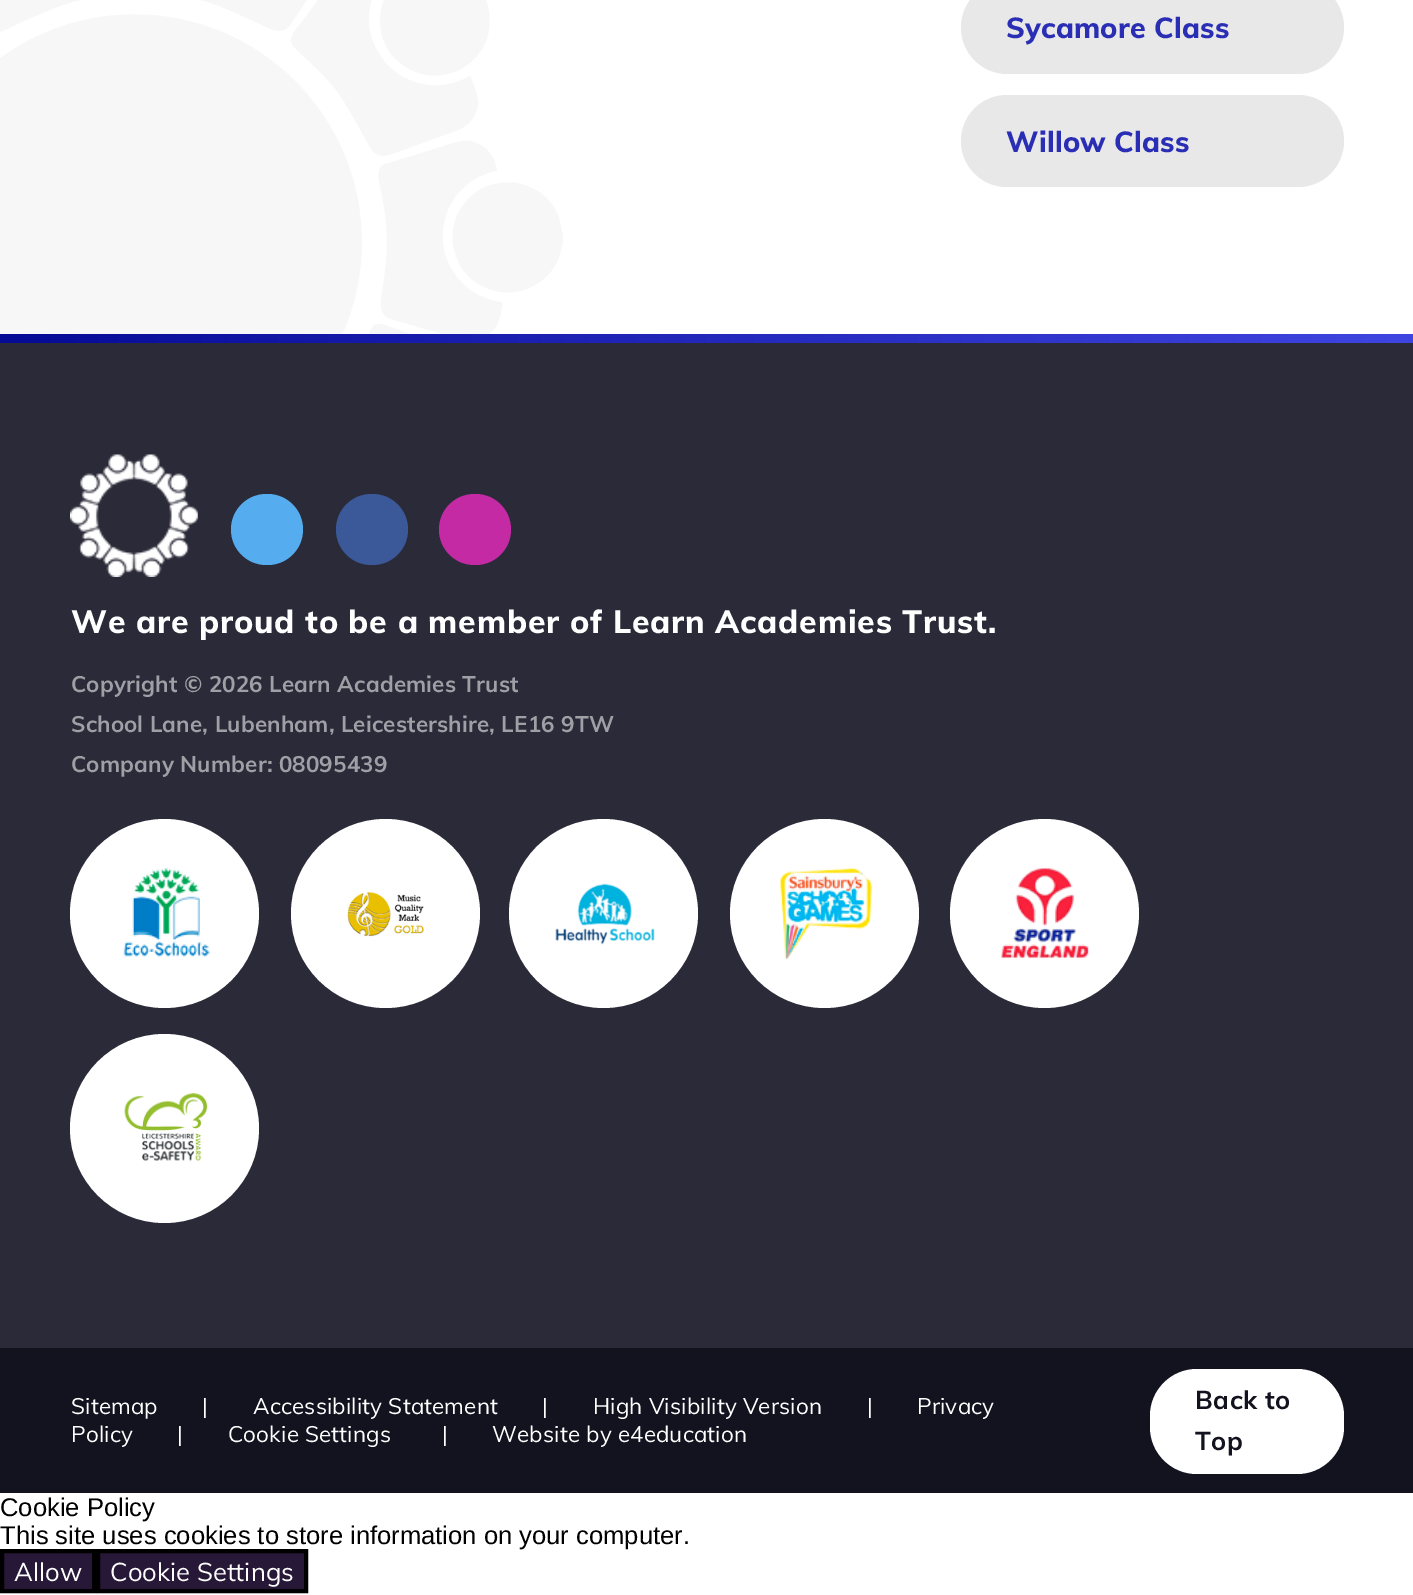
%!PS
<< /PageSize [1413 1595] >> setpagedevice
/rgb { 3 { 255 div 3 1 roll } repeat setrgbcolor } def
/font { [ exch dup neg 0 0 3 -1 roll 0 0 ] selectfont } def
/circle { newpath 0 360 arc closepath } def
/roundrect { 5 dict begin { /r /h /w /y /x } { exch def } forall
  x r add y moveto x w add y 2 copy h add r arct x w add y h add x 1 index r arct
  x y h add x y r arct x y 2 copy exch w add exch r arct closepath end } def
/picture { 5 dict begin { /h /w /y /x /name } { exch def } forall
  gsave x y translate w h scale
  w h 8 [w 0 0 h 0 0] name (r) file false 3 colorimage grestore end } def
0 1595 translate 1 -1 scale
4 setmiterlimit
255 255 255 rgb
0 0 1413 1595 rectfill
(img/1.rgb) 0 0 563 334 picture
232 232 232 rgb
961 -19 383 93 46.5 roundrect fill
961 95 383 92 46 roundrect fill
43 42 56 rgb
0 343 1413 1005 rectfill
gsave 0 334 moveto 1413 334 lineto 1413 343 lineto 0 343 lineto closepath clip newpath
<< /ShadingType 2 /ColorSpace /DeviceRGB /Coords [0 339 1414 339] /Extend [true true] /Function << /FunctionType 2 /Domain [0 1] /C0 [0.024 0.043 0.588] /C1 [0.247 0.271 0.878] /N 1 >> >> shfill grestore
(img/2.rgb) 70 454 128 123 picture
85 172 238 rgb
231 494 72 71 35.5 roundrect fill
59 89 152 rgb
336 494 72 71 35.5 roundrect fill
195 42 163 rgb
439 494 72 71 35.5 roundrect fill
255 255 255 rgb
164.5 913.5 94.5 circle fill
(img/3.rgb) 123 867 87 90 picture
385.5 913.5 94.5 circle fill
(img/4.rgb) 347 891 77 46 picture
603.5 913.5 94.5 circle fill
(img/5.rgb) 555 883 100 62 picture
824.5 913.5 94.5 circle fill
(img/6.rgb) 780 868 93 91 picture
1044.5 913.5 94.5 circle fill
(img/7.rgb) 1001 867 88 92 picture
164.5 1128.5 94.5 circle fill
(img/8.rgb) 124 1093 84 68 picture
19 18 31 rgb
0 1348 1413 145 rectfill
255 255 255 rgb
1150 1369 194 105 47 roundrect fill
/Muli-ExtraBold 28.75 font
41 46 181 rgb
1006 38 moveto 0.15 0 (Sycamore Class) ashow
1006 152 moveto 0.15 0 (Willow Class) ashow
/Muli-ExtraBold 32 font
255 255 255 rgb
71 633 moveto 0.8 0 (We are proud to be a member of Learn Academies Trust.) ashow
/Muli-Bold 22.4 font
160 159 165 rgb
71 692 moveto 0.15 0 (Copyright © 2026 Learn Academies Trust) ashow
71 732 moveto 0.15 0 (School Lane, Lubenham, Leicestershire, LE16 9TW) ashow
71 772 moveto 0.15 0 (Company Number: 08095439) ashow
/Muli-Regular 22.4 font
255 255 255 rgb
71 1414 moveto 0.15 0 (Sitemap) ashow
202 1414 moveto 0.15 0 (|) ashow
253 1414 moveto 0.15 0 (Accessibility Statement) ashow
542 1414 moveto 0.15 0 (|) ashow
593 1414 moveto 0.15 0 (High Visibility Version) ashow
867 1414 moveto 0.15 0 (|) ashow
917 1414 moveto 0.15 0 (Privacy) ashow
71 1442 moveto 0.15 0 (Policy) ashow
177 1442 moveto 0.15 0 (|) ashow
228 1442 moveto 0.15 0 (Cookie Settings) ashow
442 1442 moveto 0.15 0 (|) ashow
492 1442 moveto 0.15 0 (Website by e4education) ashow
/Muli-Bold 25.6 font
19 18 31 rgb
1195 1409 moveto 0.5 0 (Back to) ashow
1195 1450 moveto 0.5 0 (Top) ashow
/LiberationSans-Regular 25.6 font
0 0 0 rgb
0 1516 moveto (Cookie Policy) show
0 1544 moveto (This site uses cookies to store information on your computer.) show
40 24 56 rgb
2 1551 moveto 94 1551 lineto 94 1591 lineto 2 1591 lineto closepath gsave fill grestore
0 0 0 rgb
4 setlinewidth
stroke
/Muli-Regular 25.6 font
255 255 255 rgb
14 1581 moveto (Allow) show
40 24 56 rgb
98 1551 moveto 306 1551 lineto 306 1591 lineto 98 1591 lineto closepath gsave fill grestore
0 0 0 rgb
stroke
255 255 255 rgb
110 1581 moveto (Cookie Settings) show
showpage
